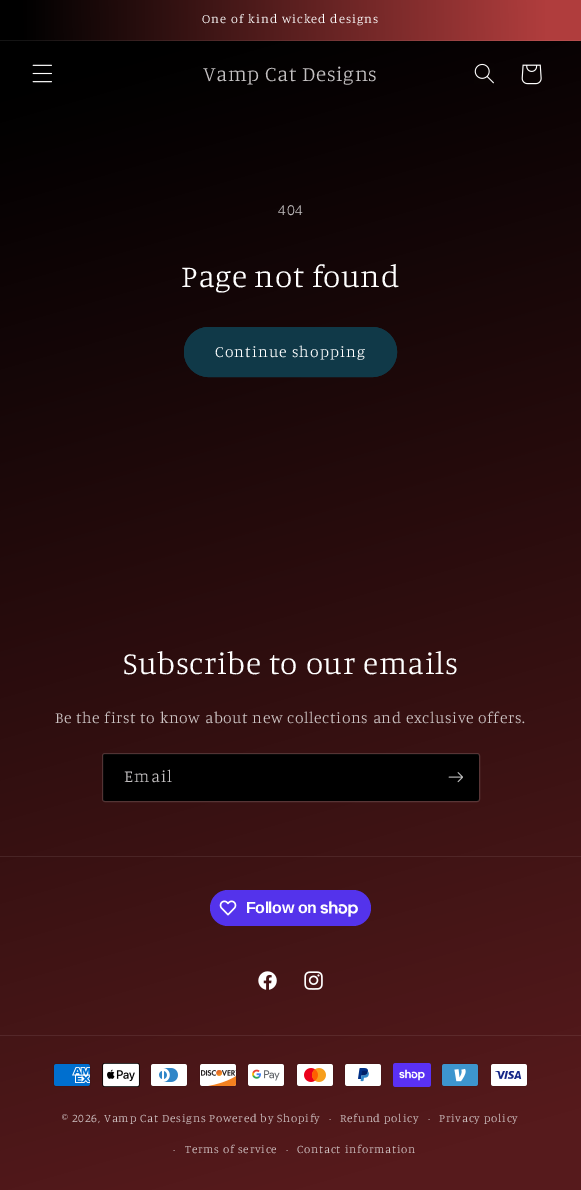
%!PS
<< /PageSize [581 1190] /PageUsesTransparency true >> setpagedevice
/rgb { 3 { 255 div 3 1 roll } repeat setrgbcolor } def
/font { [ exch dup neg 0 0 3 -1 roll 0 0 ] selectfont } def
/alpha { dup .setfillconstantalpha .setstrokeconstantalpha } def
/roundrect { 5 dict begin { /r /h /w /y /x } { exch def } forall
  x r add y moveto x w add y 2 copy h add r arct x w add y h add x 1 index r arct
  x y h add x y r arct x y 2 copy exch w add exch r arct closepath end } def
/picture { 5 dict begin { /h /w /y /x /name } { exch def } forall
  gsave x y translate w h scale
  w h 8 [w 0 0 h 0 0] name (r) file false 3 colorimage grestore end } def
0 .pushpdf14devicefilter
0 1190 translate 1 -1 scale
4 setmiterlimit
255 255 255 rgb
0 0 581 1190 rectfill
gsave 0 41 moveto 581 41 lineto 581 1190 lineto 0 1190 lineto closepath clip newpath
<< /ShadingType 2 /ColorSpace /DeviceRGB /Coords [111 -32 470 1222] /Extend [true true] /Function << /FunctionType 3 /Domain [0 1] /Functions [<< /FunctionType 2 /Domain [0 1] /C0 [0 0 0] /C1 [0 0 0] /N 1 >> << /FunctionType 2 /Domain [0 1] /C0 [0 0 0] /C1 [0.337 0.102 0.11] /N 1 >> << /FunctionType 2 /Domain [0 1] /C0 [0.337 0.102 0.11] /C1 [0.337 0.102 0.11] /N 1 >>] /Bounds [0.07 0.94] /Encode [0 1 0 1 0 1] >> >> shfill grestore
gsave 0 1035 moveto 581 1035 lineto 581 1036 lineto 0 1036 lineto closepath clip newpath
<< /ShadingType 2 /ColorSpace /DeviceRGB /Coords [111 -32 470 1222] /Extend [true true] /Function << /FunctionType 3 /Domain [0 1] /Functions [<< /FunctionType 2 /Domain [0 1] /C0 [0.078 0.078 0.078] /C1 [0.078 0.078 0.078] /N 1 >> << /FunctionType 2 /Domain [0 1] /C0 [0.078 0.078 0.078] /C1 [0.392 0.173 0.18] /N 1 >> << /FunctionType 2 /Domain [0 1] /C0 [0.392 0.173 0.18] /C1 [0.392 0.173 0.18] /N 1 >>] /Bounds [0.07 0.94] /Encode [0 1 0 1 0 1] >> >> shfill grestore
gsave 0 856 moveto 581 856 lineto 581 857 lineto 0 857 lineto closepath clip newpath
<< /ShadingType 2 /ColorSpace /DeviceRGB /Coords [111 -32 470 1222] /Extend [true true] /Function << /FunctionType 3 /Domain [0 1] /Functions [<< /FunctionType 2 /Domain [0 1] /C0 [0.078 0.078 0.078] /C1 [0.078 0.078 0.078] /N 1 >> << /FunctionType 2 /Domain [0 1] /C0 [0.078 0.078 0.078] /C1 [0.392 0.173 0.18] /N 1 >> << /FunctionType 2 /Domain [0 1] /C0 [0.392 0.173 0.18] /C1 [0.392 0.173 0.18] /N 1 >>] /Bounds [0.07 0.94] /Encode [0 1 0 1 0 1] >> >> shfill grestore
gsave 0 0 moveto 581 0 lineto 581 40 lineto 0 40 lineto closepath clip newpath
<< /ShadingType 2 /ColorSpace /DeviceRGB /Coords [-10 600 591 590] /Extend [true true] /Function << /FunctionType 3 /Domain [0 1] /Functions [<< /FunctionType 2 /Domain [0 1] /C0 [0 0 0] /C1 [0 0 0] /N 1 >> << /FunctionType 2 /Domain [0 1] /C0 [0 0 0] /C1 [0.69 0.239 0.239] /N 1 >> << /FunctionType 2 /Domain [0 1] /C0 [0.69 0.239 0.239] /C1 [0.69 0.239 0.239] /N 1 >>] /Bounds [0.07 0.94] /Encode [0 1 0 1 0 1] >> >> shfill grestore
gsave 0 40 moveto 581 40 lineto 581 41 lineto 0 41 lineto closepath clip newpath
<< /ShadingType 2 /ColorSpace /DeviceRGB /Coords [-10 600 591 590] /Extend [true true] /Function << /FunctionType 3 /Domain [0 1] /Functions [<< /FunctionType 2 /Domain [0 1] /C0 [0.078 0.078 0.078] /C1 [0.078 0.078 0.078] /N 1 >> << /FunctionType 2 /Domain [0 1] /C0 [0.078 0.078 0.078] /C1 [0.714 0.302 0.302] /N 1 >> << /FunctionType 2 /Domain [0 1] /C0 [0.714 0.302 0.302] /C1 [0.714 0.302 0.302] /N 1 >>] /Bounds [0.07 0.94] /Encode [0 1 0 1 0 1] >> >> shfill grestore
(img/1.rgb) 32 64 20 19 picture
(img/2.rgb) 474 63 20 21 picture
(img/3.rgb) 521 64 21 21 picture
16 57 72 rgb
184 327 213 50 25 roundrect fill
184.5 327.5 212 49 24.5 roundrect stroke
0 0 0 rgb
103 754 376 47 2 roundrect fill
0.15 alpha
255 255 255 rgb
102.5 753.5 377 48 2.5 roundrect stroke
1 alpha
(img/4.rgb) 448 772 15 11 picture
84 51 235 rgb
210 890 161 36 18 roundrect fill
(img/5.rgb) 219 900 18 16 picture
(img/6.rgb) 320 901 38 16 picture
(img/7.rgb) 258 971 19 19 picture
(img/8.rgb) 304 971 19 19 picture
(img/9.rgb) 53 1063 38 24 picture
(img/10.rgb) 102 1063 38 24 picture
(img/11.rgb) 150 1063 38 24 picture
(img/12.rgb) 199 1063 38 24 picture
(img/13.rgb) 247 1063 38 24 picture
(img/14.rgb) 296 1063 38 24 picture
(img/15.rgb) 344 1063 38 24 picture
(img/16.rgb) 393 1063 38 24 picture
(img/17.rgb) 441 1063 38 24 picture
(img/18.rgb) 490 1063 38 24 picture
/Manuale-Light 12.6 font
255 255 255 rgb
202 23 moveto 1.05 0 (One of kind wicked designs) ashow
/Manuale-Light 21 font
195 192 193 rgb
203 81 moveto 0.63 0 (Vamp Cat Designs) ashow
/Manuale-Light 15.75 font
278 215 moveto 0.63 0 (404) ashow
/Manuale-Light 31.5 font
255 255 255 rgb
181 287 moveto 0.63 0 (Page not found) ashow
/Manuale-Light 15.75 font
215 357 moveto 1.05 0 (Continue shopping) ashow
/Manuale-Light 31.5 font
123 674 moveto 0.63 0 (Subscribe to our emails) ashow
/Manuale-Light 15.75 font
204 195 195 rgb
55 723 moveto 0.63 0 (Be the first to know about new collections and exclusive offers.) ashow
/Manuale-Light 17 font
195 192 193 rgb
124 782 moveto 1.05 0 (Email) ashow
/LiberationSans-Bold 16 font
255 255 255 rgb
246 913 moveto -0.5 0 (Follow on) ashow
/Manuale-Light 11.5 font
210 197 198 rgb
62 1122 moveto 0.75 0 (© 2026,) ashow
104 1122 moveto 0.75 0 (Vamp Cat Designs Powered by Shopify) ashow
/Manuale-Light 10 font
329 1122 moveto 0.75 0 (·) ashow
/Manuale-Light 11.5 font
340 1122 moveto 0.75 0 (Refund policy) ashow
/Manuale-Light 10 font
428 1122 moveto 0.75 0 (·) ashow
/Manuale-Light 11.5 font
439 1122 moveto 0.75 0 (Privacy policy) ashow
/Manuale-Light 10 font
173 1153 moveto 0.75 0 (·) ashow
/Manuale-Light 11.5 font
185 1153 moveto 0.75 0 (Terms of service) ashow
/Manuale-Light 10 font
286 1153 moveto 0.75 0 (·) ashow
/Manuale-Light 11.5 font
297 1153 moveto 0.75 0 (Contact information) ashow
.poppdf14devicefilter showpage
